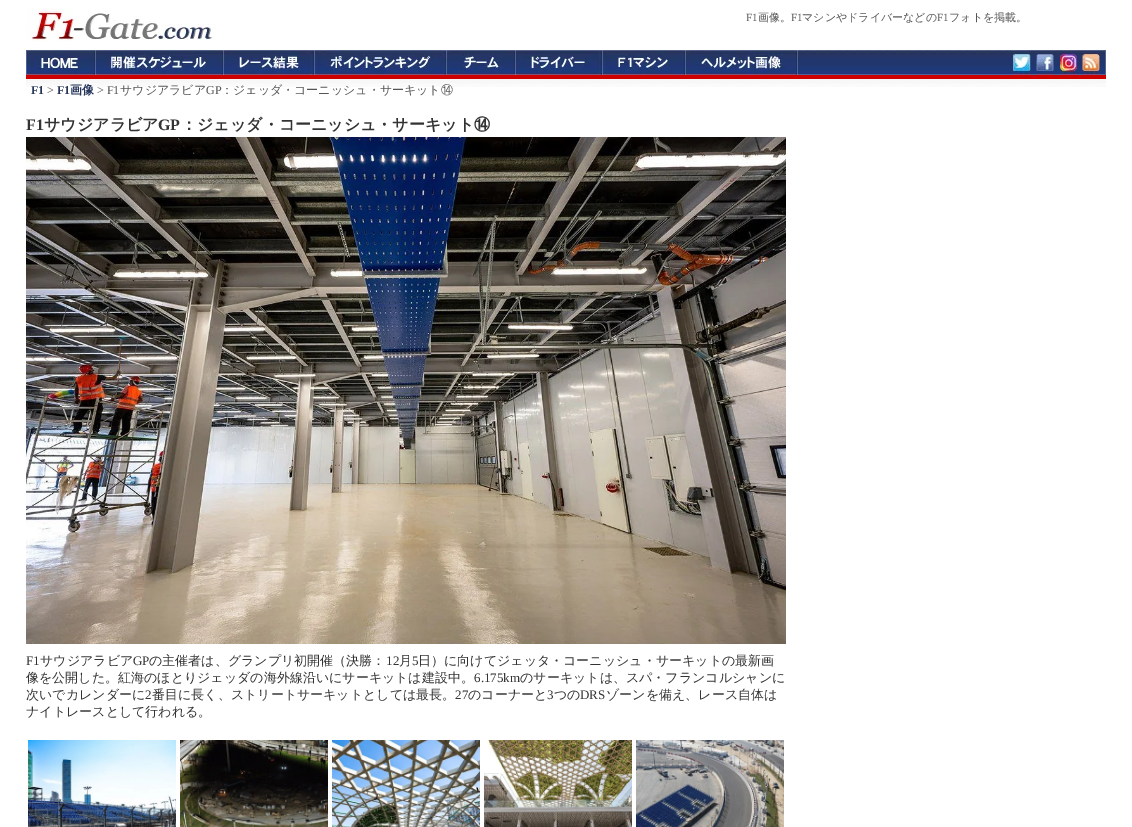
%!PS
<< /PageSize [1132 827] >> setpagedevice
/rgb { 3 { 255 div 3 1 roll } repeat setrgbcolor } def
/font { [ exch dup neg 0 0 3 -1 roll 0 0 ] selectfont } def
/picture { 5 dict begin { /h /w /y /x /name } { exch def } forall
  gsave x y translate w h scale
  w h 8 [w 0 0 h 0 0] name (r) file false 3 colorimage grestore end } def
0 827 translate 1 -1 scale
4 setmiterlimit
255 255 255 rgb
0 0 1132 827 rectfill
(img/1.rgb) 26 8 188 33 picture
(img/2.rgb) 798 50 307 25 picture
83 98 137 rgb
1105 50 1 25 rectfill
(img/3.rgb) 26 50 69 25 picture
(img/4.rgb) 95 50 128 25 picture
(img/5.rgb) 223 50 91 25 picture
(img/6.rgb) 314 50 132 25 picture
(img/7.rgb) 446 50 69 25 picture
(img/8.rgb) 515 50 87 25 picture
(img/9.rgb) 602 50 83 25 picture
(img/10.rgb) 685 50 113 25 picture
(img/11.rgb) 1013 50 18 25 picture
(img/12.rgb) 1036 50 18 25 picture
(img/13.rgb) 1060 50 18 25 picture
(img/14.rgb) 1082 50 18 25 picture
(img/15.rgb) 26 79 1080 8 picture
204 0 0 rgb
26 75 1080 4 rectfill
(img/16.rgb) 26 137 760 507 picture
(img/17.rgb) 28 740 148 87 picture
(img/18.rgb) 180 740 148 87 picture
(img/19.rgb) 332 740 148 87 picture
(img/20.rgb) 484 740 148 87 picture
(img/21.rgb) 636 740 148 87 picture
/LiberationSerif-Regular 11 font
85 85 85 rgb
746 21 moveto (F1) show
/WenQuanYiZenHei-Medium 11 font
758 21 moveto (画像。) show
/LiberationSerif-Regular 11 font
791 21 moveto (F1) show
/WenQuanYiZenHei-Medium 11 font
802 21 moveto (マシンやドライバーなどの) show
/LiberationSerif-Regular 11 font
937 21 moveto (F1) show
/WenQuanYiZenHei-Medium 11 font
949 21 moveto (フォトを掲載。) show
/LiberationSerif-Bold 12 font
38 53 92 rgb
31 94 moveto (F1) show
/LiberationSerif-Regular 12 font
85 85 85 rgb
47 94 moveto (>) show
/LiberationSerif-Bold 12 font
38 53 92 rgb
57 94 moveto (F1) show
/WenQuanYiZenHei-Bold 12 font
70 94 moveto (画像) show
/LiberationSerif-Regular 12 font
85 85 85 rgb
97 94 moveto (> F1) show
/WenQuanYiZenHei-Medium 12 font
120 94 moveto (サウジアラビア) show
/LiberationSerif-Regular 12 font
206 94 moveto (GP) show
/WenQuanYiZenHei-Medium 12 font
221 94 moveto (：ジェッダ・コーニッシュ・サーキット⑭) show
/LiberationSerif-Bold 16 font
51 51 51 rgb
26 130 moveto (F1) show
/WenQuanYiZenHei-Bold 16 font
44 130 moveto (サウジアラビア) show
/LiberationSerif-Bold 16 font
158 130 moveto (GP) show
/WenQuanYiZenHei-Bold 16 font
181 130 moveto (：ジェッダ・コーニッシュ・サーキット⑭) show
/LiberationSerif-Regular 13 font
26 665 moveto (F1) show
/WenQuanYiZenHei-Medium 13 font
40 665 moveto (サウジアラビア) show
/LiberationSerif-Regular 13 font
133 665 moveto (GP) show
/WenQuanYiZenHei-Medium 13 font
149 665 moveto (の主催者は、グランプリ初開催（決勝：) show
/LiberationSerif-Regular 13 font
386 665 moveto (12) show
/WenQuanYiZenHei-Medium 13 font
399 665 moveto (月) show
/LiberationSerif-Regular 13 font
412 665 moveto (5) show
/WenQuanYiZenHei-Medium 13 font
418 665 moveto (日）に向けてジェッタ・コーニッシュ・サーキットの最新画) show
26 682 moveto (像を公開した。紅海のほとりジェッダの海外線沿いにサーキットは建設中。) show
/LiberationSerif-Regular 13 font
474 682 moveto (6.175km) show
/WenQuanYiZenHei-Medium 13 font
520 682 moveto (のサーキットは、スパ・フランコルシャンに) show
26 699 moveto (次いでカレンダーに) show
/LiberationSerif-Regular 13 font
145 699 moveto (2) show
/WenQuanYiZenHei-Medium 13 font
152 699 moveto (番目に長く、ストリートサーキットとしては最長。) show
/LiberationSerif-Regular 13 font
455 699 moveto (27) show
/WenQuanYiZenHei-Medium 13 font
468 699 moveto (のコーナーと) show
/LiberationSerif-Regular 13 font
547 699 moveto (3) show
/WenQuanYiZenHei-Medium 13 font
554 699 moveto (つの) show
/LiberationSerif-Regular 13 font
580 699 moveto (DRS) show
/WenQuanYiZenHei-Medium 13 font
606 699 moveto (ゾーンを備え、レース自体は) show
26 716 moveto (ナイトレースとして行われる。) show
showpage
